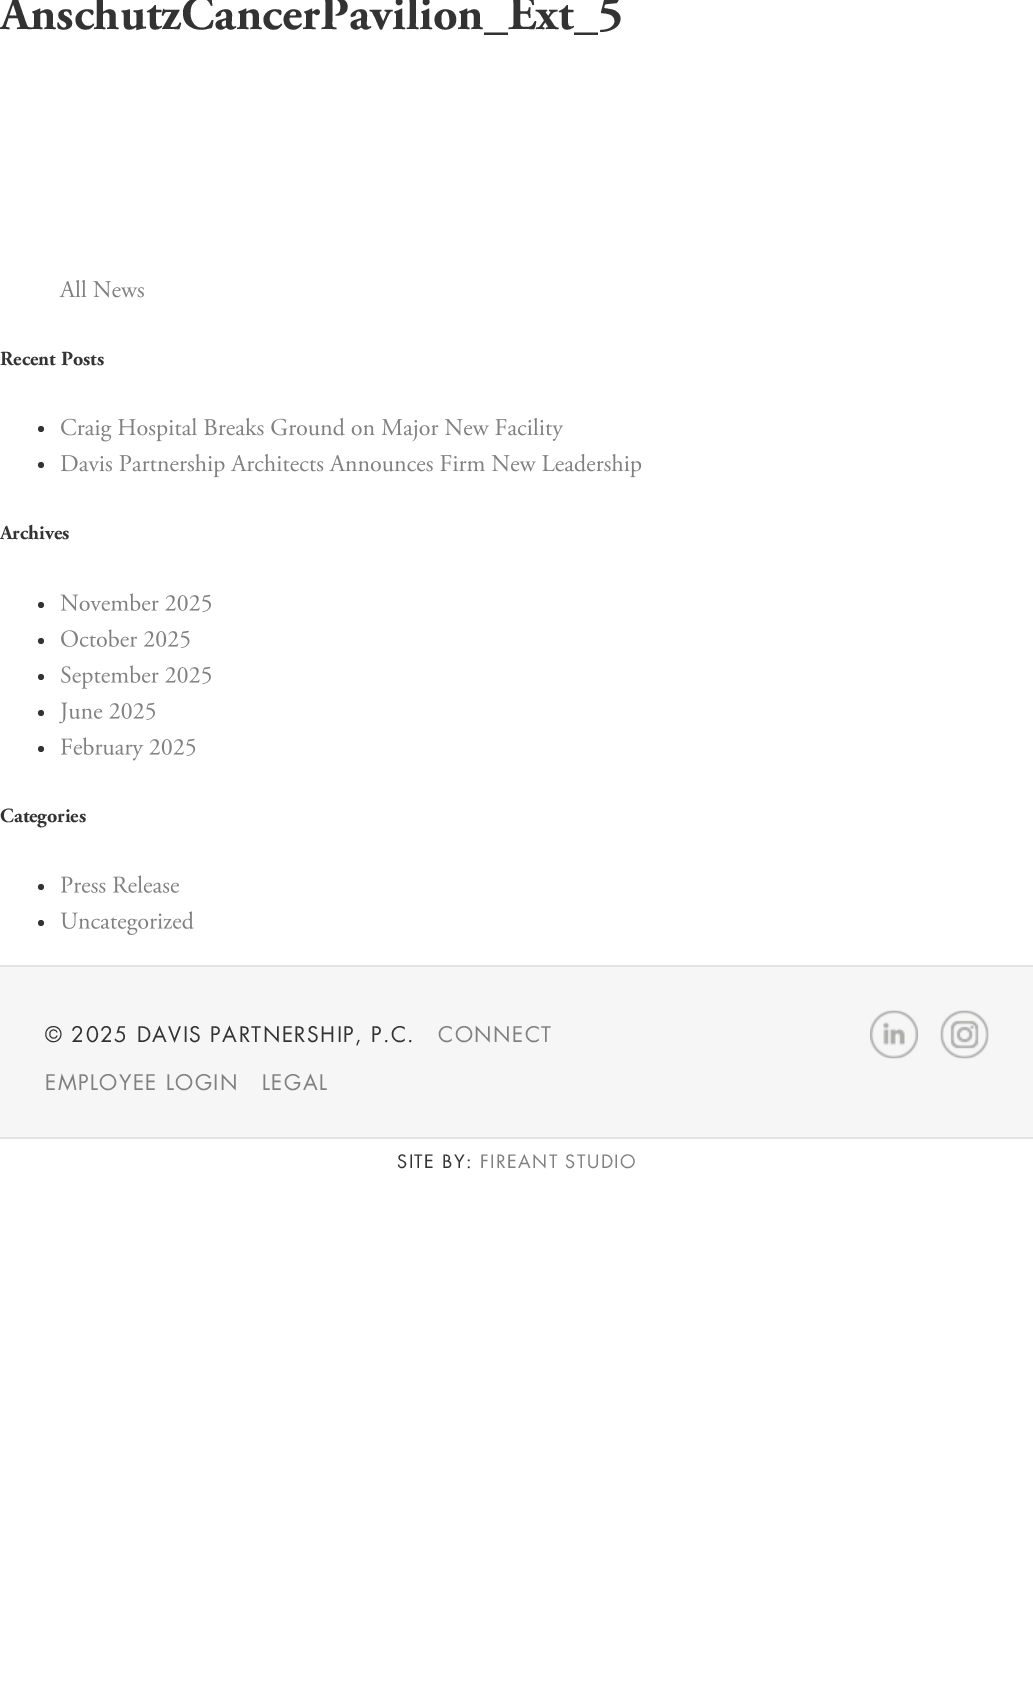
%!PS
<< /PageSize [1033 1692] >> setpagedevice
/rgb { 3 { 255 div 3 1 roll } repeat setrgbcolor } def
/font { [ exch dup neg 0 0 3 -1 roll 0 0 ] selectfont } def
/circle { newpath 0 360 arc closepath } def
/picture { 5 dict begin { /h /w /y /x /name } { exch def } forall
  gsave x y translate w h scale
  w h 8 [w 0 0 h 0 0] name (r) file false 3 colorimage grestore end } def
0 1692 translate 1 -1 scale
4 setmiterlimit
255 255 255 rgb
0 0 1033 1692 rectfill
(img/1.rgb) 59 279 85 19 picture
51 51 51 rgb
41 429 3 circle fill
(img/2.rgb) 61 417 503 25 picture
41 465 3 circle fill
(img/3.rgb) 61 453 581 25 picture
41 605 3 circle fill
(img/4.rgb) 60 593 151 20 picture
41 641 3 circle fill
(img/5.rgb) 61 629 129 20 picture
41 677 3 circle fill
(img/6.rgb) 61 665 150 24 picture
41 713 3 circle fill
(img/7.rgb) 59 702 96 22 picture
41 749 3 circle fill
(img/8.rgb) 61 737 135 24 picture
41 887 3 circle fill
(img/9.rgb) 61 875 118 18 picture
41 923 3 circle fill
(img/10.rgb) 60 911 134 24 picture
[
  [0 967 1033 170 246 246 246]
  [0 965 1033 2 227 227 227]
  [0 1137 1033 2 227 227 227]
] { aload pop rgb rectfill } forall
(img/11.rgb) 870 1010 48 49 picture
(img/12.rgb) 940 1010 49 49 picture
/AdobeGaramond-Bold 48 font
51 51 51 rgb
0 29 moveto (AnschutzCancerPavilion_Ext_5) show
/AdobeGaramond-Bold 20 font
[
  [(Recent Posts) 0 365]
  [(Archives) 0 539]
  [(Categories) 0 822]
] { aload pop moveto show } forall
/Futura-Regular 21 font
45 1042 moveto 1.45 0 (© 2025 DAVIS PARTNERSHIP, P.C.) ashow
128 128 128 rgb
438 1042 moveto 1.45 0 (CONNECT) ashow
45 1090 moveto 1.45 0 (EMPLOYEE LOGIN) ashow
262 1090 moveto 1.45 0 (LEGAL) ashow
/Futura-Regular 18 font
51 51 51 rgb
397 1168 moveto 1.45 0 (SITE BY:) ashow
128 128 128 rgb
480 1168 moveto 1.45 0 (FIREANT STUDIO) ashow
showpage
